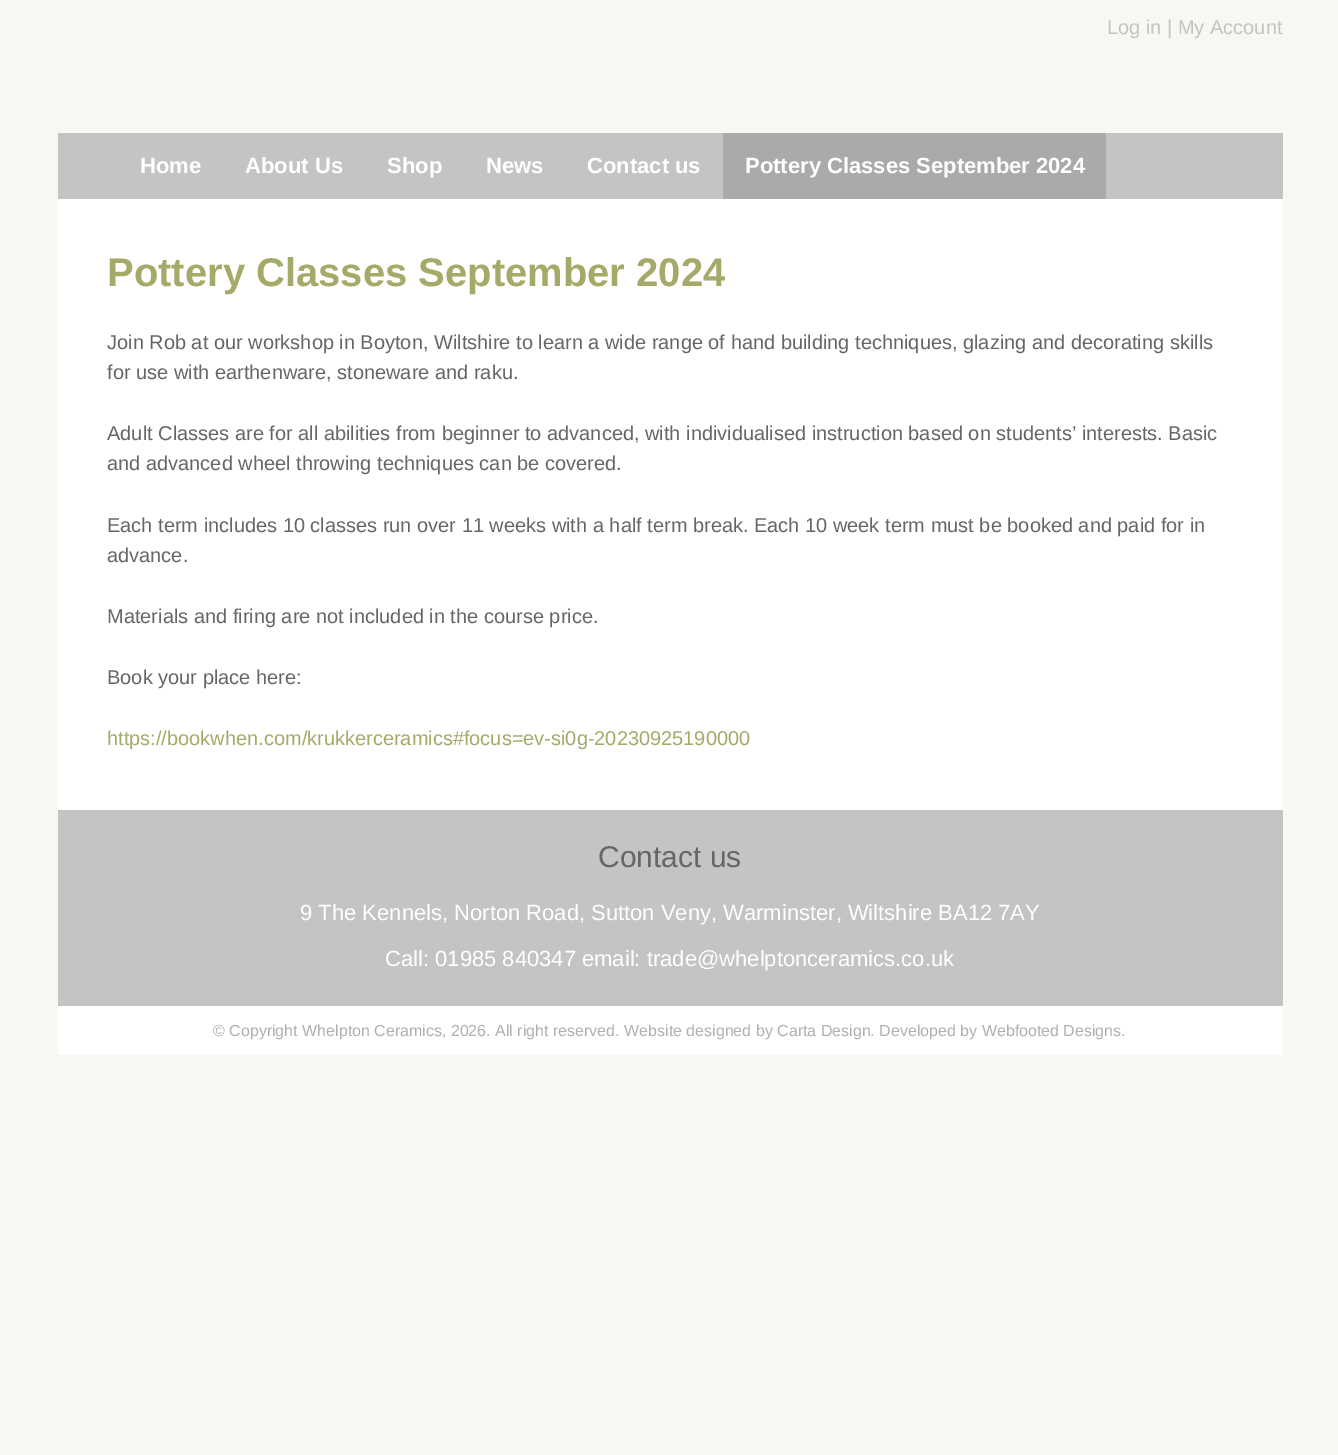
%!PS
<< /PageSize [1338 1455] >> setpagedevice
/rgb { 3 { 255 div 3 1 roll } repeat setrgbcolor } def
/font { [ exch dup neg 0 0 3 -1 roll 0 0 ] selectfont } def
0 1455 translate 1 -1 scale
4 setmiterlimit
249 247 243 rgb
0 0 1338 1455 rectfill
[
  [58 199 1225 611 255 255 255]
  [58 133 1225 66 196 196 196]
  [723 133 383 66 170 170 170]
  [58 810 1225 196 196 196 196]
  [58 1006 1225 49 255 255 255]
] { aload pop rgb rectfill } forall
/LiberationSans-Regular 20 font
196 196 196 rgb
1107 34 moveto (Log in | My Account) show
/LiberationSans-Bold 22 font
255 255 255 rgb
[
  [(Home) 140 173]
  [(About Us) 245 173]
  [(Shop) 387 173]
  [(News) 486 173]
  [(Contact us) 587 173]
  [(Pottery Classes September 2024) 745 173]
] { aload pop moveto show } forall
/LiberationSans-Bold 40 font
166 170 105 rgb
107 286 moveto (Pottery Classes September 2024) show
/LiberationSans-Regular 20 font
102 102 102 rgb
[
  [(Join Rob at our workshop in Boyton, Wiltshire to learn a wide range of hand building techniques, glazing and decorating skills) 107 349]
  [(for use with earthenware, stoneware and raku.) 107 379]
  [(Adult Classes are for all abilities from beginner to advanced, with individualised instruction based on students’ interests. Basic) 107 440]
  [(and advanced wheel throwing techniques can be covered.) 107 470]
  [(Each term includes 10 classes run over 11 weeks with a half term break. Each 10 week term must be booked and paid for in) 107 532]
  [(advance.) 107 562]
  [(Materials and firing are not included in the course price.) 107 623]
  [(Book your place here:) 107 684]
] { aload pop moveto show } forall
166 170 105 rgb
107 745 moveto (https://bookwhen.com/krukkerceramics#focus=ev-si0g-20230925190000) show
/LiberationSans-Regular 30 font
102 102 102 rgb
598 867 moveto (Contact us) show
/LiberationSans-Regular 22 font
255 255 255 rgb
300 920 moveto (9 The Kennels, Norton Road, Sutton Veny, Warminster, Wiltshire BA12 7AY) show
385 966 moveto (Call: 01985 840347 email: trade@whelptonceramics.co.uk) show
/LiberationSans-Regular 16 font
176 176 176 rgb
213 1036 moveto (© Copyright Whelpton Ceramics, 2026. All right reserved. Website designed by Carta Design. Developed by Webfooted Designs.) show
showpage
